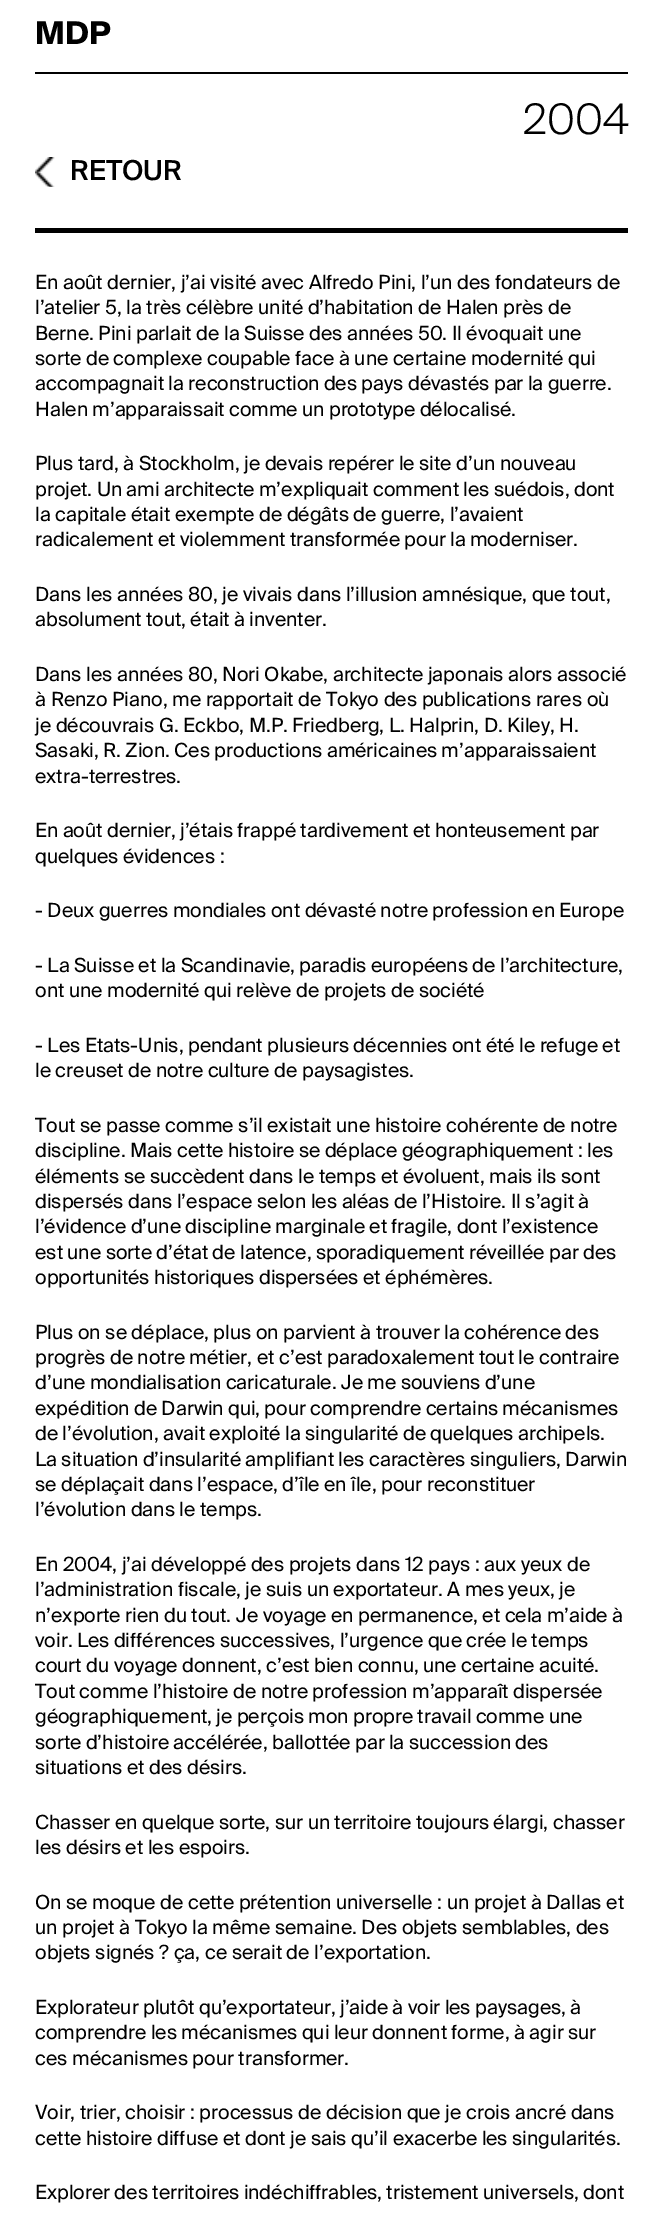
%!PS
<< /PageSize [663 2218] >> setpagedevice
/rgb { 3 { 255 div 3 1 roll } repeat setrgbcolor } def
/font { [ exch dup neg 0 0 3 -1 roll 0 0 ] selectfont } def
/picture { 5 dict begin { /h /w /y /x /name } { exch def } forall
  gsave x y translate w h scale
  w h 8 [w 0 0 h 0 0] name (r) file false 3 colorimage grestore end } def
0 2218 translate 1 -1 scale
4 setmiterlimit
255 255 255 rgb
0 0 663 2218 rectfill
0 0 0 rgb
35 72 593 2 rectfill
35 228 593 5 rectfill
(img/1.rgb) 35 157 20 30 picture
/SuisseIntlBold-Bold 31.5 font
35 44 moveto (MDP) show
/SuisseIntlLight-Light 42 font
523 134 moveto (2004) show
/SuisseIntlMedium-Medium 27.5 font
70 180 moveto (RETOUR) show
/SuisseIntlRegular-Regular 19.5 font
[
  [(En août dernier, j’ai visité avec Alfredo Pini, l’un des fondateurs de) 35 289]
  [(l’atelier 5, la très célèbre unité d’habitation de Halen près de) 35 314]
  [(Berne. Pini parlait de la Suisse des années 50. Il évoquait une) 35 340]
] { aload pop moveto show } forall
35 365 moveto -0.1 0 32 (sorte de complexe coupable face à une certaine modernité qui) widthshow
35 390 moveto -0.25 0 32 (accompagnait la reconstruction des pays dévastés par la guerre.) widthshow
35 416 moveto -0.25 0 32 (Halen m’apparaissait comme un prototype délocalisé.) widthshow
35 470 moveto (Plus tard, à Stockholm, je devais repérer le site d’un nouveau) show
35 496 moveto -0.25 0 32 (projet. Un ami architecte m’expliquait comment les suédois, dont) widthshow
35 521 moveto -0.1 0 32 (la capitale était exempte de dégâts de guerre, l’avaient) widthshow
35 546 moveto -0.25 0 32 (radicalement et violemment transformée pour la moderniser.) widthshow
35 601 moveto (Dans les années 80, je vivais dans l’illusion amnésique, que tout,) show
35 626 moveto -0.25 0 32 (absolument tout, était à inventer.) widthshow
35 681 moveto -0.1 0 32 (Dans les années 80, Nori Okabe, architecte japonais alors associé) widthshow
35 706 moveto (à Renzo Piano, me rapportait de Tokyo des publications rares où) show
35 732 moveto (je découvrais G. Eckbo, M.P. Friedberg, L. Halprin, D. Kiley, H.) show
35 757 moveto -0.25 0 32 (Sasaki, R. Zion. Ces productions américaines m’apparaissaient) widthshow
35 783 moveto (extra-terrestres.) show
35 837 moveto -0.25 0 32 (En août dernier, j’étais frappé tardivement et honteusement par) widthshow
35 863 moveto (quelques évidences :) show
35 917 moveto -0.1 0 32 (- Deux guerres mondiales ont dévasté notre profession en Europe) widthshow
35 972 moveto -0.1 0 32 (- La Suisse et la Scandinavie, paradis européens de l’architecture,) widthshow
35 997 moveto (ont une modernité qui relève de projets de société) show
35 1052 moveto -0.1 0 32 (- Les Etats-Unis, pendant plusieurs décennies ont été le refuge et) widthshow
35 1077 moveto -0.1 0 32 (le creuset de notre culture de paysagistes.) widthshow
35 1132 moveto (Tout se passe comme s’il existait une histoire cohérente de notre) show
35 1157 moveto -0.25 0 32 (discipline. Mais cette histoire se déplace géographiquement : les) widthshow
35 1183 moveto (éléments se succèdent dans le temps et évoluent, mais ils sont) show
35 1208 moveto (dispersés dans l’espace selon les aléas de l’Histoire. Il s’agit à) show
35 1233 moveto -0.25 0 32 (l’évidence d’une discipline marginale et fragile, dont l’existence) widthshow
35 1259 moveto -0.1 0 32 (est une sorte d’état de latence, sporadiquement réveillée par des) widthshow
35 1284 moveto (opportunités historiques dispersées et éphémères.) show
35 1339 moveto (Plus on se déplace, plus on parvient à trouver la cohérence des) show
35 1364 moveto -0.1 0 32 (progrès de notre métier, et c’est paradoxalement tout le contraire) widthshow
35 1389 moveto -0.25 0 32 (d’une mondialisation caricaturale. Je me souviens d’une) widthshow
35 1415 moveto -0.25 0 32 (expédition de Darwin qui, pour comprendre certains mécanismes) widthshow
35 1440 moveto -0.25 0 32 (de l’évolution, avait exploité la singularité de quelques archipels.) widthshow
35 1466 moveto -0.25 0 32 (La situation d’insularité amplifiant les caractères singuliers, Darwin) widthshow
35 1491 moveto -0.1 0 32 (se déplaçait dans l’espace, d’île en île, pour reconstituer) widthshow
35 1516 moveto (l’évolution dans le temps.) show
35 1571 moveto (En 2004, j’ai développé des projets dans 12 pays : aux yeux de) show
35 1596 moveto -0.1 0 32 (l’administration fiscale, je suis un exportateur. A mes yeux, je) widthshow
35 1622 moveto (n’exporte rien du tout. Je voyage en permanence, et cela m’aide à) show
35 1647 moveto -0.25 0 32 (voir. Les différences successives, l’urgence que crée le temps) widthshow
35 1672 moveto -0.1 0 32 (court du voyage donnent, c’est bien connu, une certaine acuité.) widthshow
35 1698 moveto -0.25 0 32 (Tout comme l’histoire de notre profession m’apparaît dispersée) widthshow
35 1723 moveto -0.25 0 32 (géographiquement, je perçois mon propre travail comme une) widthshow
35 1749 moveto -0.25 0 32 (sorte d’histoire accélérée, ballottée par la succession des) widthshow
35 1774 moveto (situations et des désirs.) show
35 1829 moveto -0.1 0 32 (Chasser en quelque sorte, sur un territoire toujours élargi, chasser) widthshow
[
  [(les désirs et les espoirs.) 35 1854]
  [(On se moque de cette prétention universelle : un projet à Dallas et) 35 1909]
  [(un projet à Tokyo la même semaine. Des objets semblables, des) 35 1934]
  [(objets signés ? ça, ce serait de l’exportation.) 35 1959]
] { aload pop moveto show } forall
35 2014 moveto -0.25 0 32 (Explorateur plutôt qu’exportateur, j’aide à voir les paysages, à) widthshow
35 2039 moveto -0.1 0 32 (comprendre les mécanismes qui leur donnent forme, à agir sur) widthshow
35 2065 moveto (ces mécanismes pour transformer.) show
35 2119 moveto (Voir, trier, choisir : processus de décision que je crois ancré dans) show
35 2145 moveto -0.1 0 32 (cette histoire diffuse et dont je sais qu’il exacerbe les singularités.) widthshow
35 2199 moveto -0.25 0 32 (Explorer des territoires indéchiffrables, tristement universels, dont) widthshow
showpage
